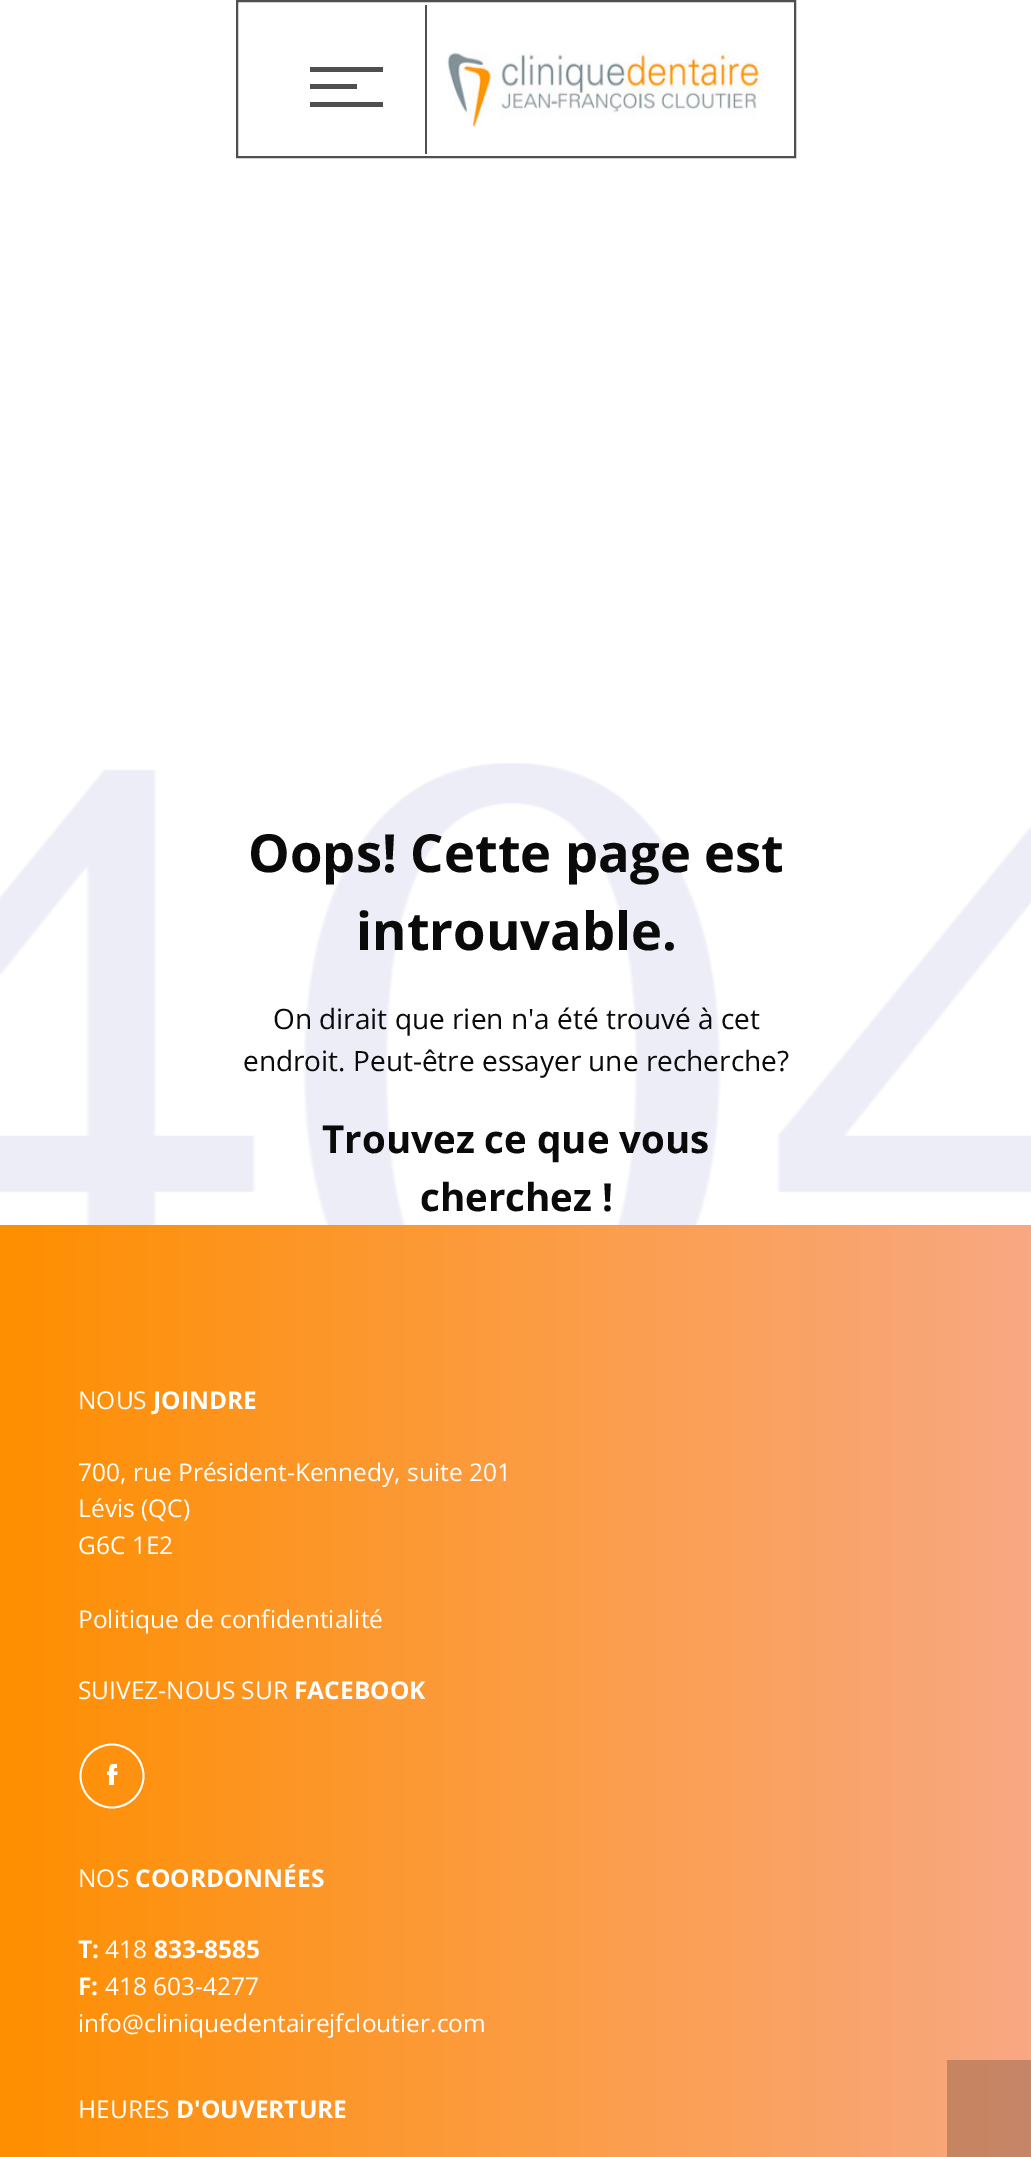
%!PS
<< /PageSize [1031 2157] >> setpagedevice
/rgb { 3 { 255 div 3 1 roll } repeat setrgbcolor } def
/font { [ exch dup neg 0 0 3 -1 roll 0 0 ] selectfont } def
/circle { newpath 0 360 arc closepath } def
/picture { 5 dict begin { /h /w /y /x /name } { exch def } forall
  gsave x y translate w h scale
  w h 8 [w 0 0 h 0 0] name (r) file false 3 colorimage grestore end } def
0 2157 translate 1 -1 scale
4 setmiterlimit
255 255 255 rgb
0 0 1031 2157 rectfill
79 79 79 rgb
2 setlinewidth
237 1 558 156 rectstroke
[
  [425 5 2 149 79 79 79]
  [310 84 47 5 79 79 79]
  [310 67 73 5 79 79 79]
  [310 102 73 5 79 79 79]
] { aload pop rgb rectfill } forall
(img/1.rgb) 447 52 314 75 picture
(img/2.rgb) 0 763 1031 462 picture
gsave 0 1225 moveto 1031 1225 lineto 1031 2157 lineto 0 2157 lineto closepath clip newpath
<< /ShadingType 2 /ColorSpace /DeviceRGB /Coords [0 1900 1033 1900] /Extend [true true] /Function << /FunctionType 2 /Domain [0 1] /C0 [1 0.561 0] /C1 [0.973 0.659 0.514] /N 1 >> >> shfill grestore
gsave 947 2060 moveto 1031 2060 lineto 1031 2157 lineto 947 2157 lineto closepath clip newpath
<< /ShadingType 2 /ColorSpace /DeviceRGB /Coords [0 1900 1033 1900] /Extend [true true] /Function << /FunctionType 2 /Domain [0 1] /C0 [0.8 0.447 0] /C1 [0.776 0.525 0.412] /N 1 >> >> shfill grestore
255 255 255 rgb
1.8 setlinewidth
112 1776 31.5 circle stroke
114 1785 moveto 109 1785 lineto 109 1775 lineto 107 1775 lineto 107 1771.5 lineto 109 1771.5 lineto 109 1764 110.5 1764 117 1764 curveto 117 1768 lineto 113.5 1768 114 1767.5 114 1771.5 curveto 117.5 1771.5 lineto 117 1775 lineto 114 1775 lineto closepath eofill
/OpenSans-Bold 52.5 font
10 10 10 rgb
248 872 moveto (Oops! Cette page est) show
356 950 moveto (introuvable.) show
/OpenSans-Regular 28 font
273 1029 moveto (On dirait que rien n'a été trouvé à cet) show
243 1071 moveto (endroit. Peut-être essayer une recherche?) show
/OpenSans-Bold 38.5 font
322 1153 moveto (Trouvez ce que vous) show
420 1211 moveto (cherchez !) show
/OpenSans-Regular 24.5 font
255 255 255 rgb
78 1409 moveto (NOUS) show
/OpenSans-Bold 24.5 font
153 1409 moveto (JOINDRE) show
/OpenSans-Regular 24.5 font
[
  [(700, rue Président-Kennedy, suite 201) 78 1481]
  [(Lévis \(QC\)) 78 1517]
  [(G6C 1E2) 78 1554]
  [(Politique de confidentialité) 78 1628]
  [(SUIVEZ-NOUS SUR) 78 1699]
] { aload pop moveto show } forall
/OpenSans-Bold 24.5 font
294 1699 moveto (FACEBOOK) show
/OpenSans-Regular 24.5 font
78 1887 moveto (NOS) show
/OpenSans-Bold 24.5 font
135 1887 moveto (COORDONNÉES) show
78 1958 moveto (T:) show
/OpenSans-Regular 24.5 font
105 1958 moveto (418) show
/OpenSans-Bold 24.5 font
154 1958 moveto (833-8585) show
78 1995 moveto (F:) show
/OpenSans-Regular 24.5 font
[
  [(418 603-4277) 105 1995]
  [(info@cliniquedentairejfcloutier.com) 78 2032]
  [(HEURES) 78 2118]
] { aload pop moveto show } forall
/OpenSans-Bold 24.5 font
176 2118 moveto (D'OUVERTURE) show
showpage
